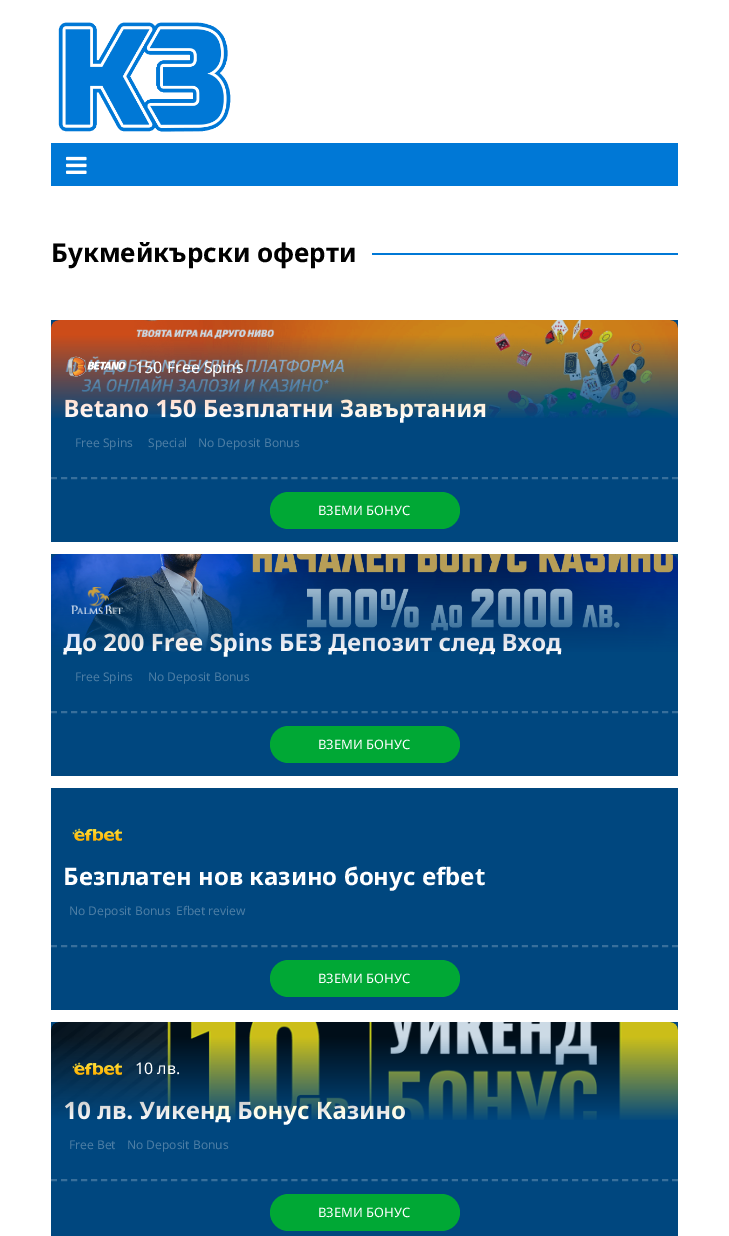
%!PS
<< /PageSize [729 1236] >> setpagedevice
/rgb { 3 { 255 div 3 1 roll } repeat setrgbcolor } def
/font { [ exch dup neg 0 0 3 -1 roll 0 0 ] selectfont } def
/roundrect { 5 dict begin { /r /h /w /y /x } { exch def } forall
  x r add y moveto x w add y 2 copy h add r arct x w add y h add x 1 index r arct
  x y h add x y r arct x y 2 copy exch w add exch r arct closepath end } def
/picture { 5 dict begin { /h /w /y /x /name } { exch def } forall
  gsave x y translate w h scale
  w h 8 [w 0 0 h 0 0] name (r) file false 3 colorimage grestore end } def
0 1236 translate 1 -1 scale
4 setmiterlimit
255 255 255 rgb
0 0 729 1236 rectfill
(img/1.rgb) 58 22 173 110 picture
0 120 214 rgb
51 143 627 43 rectfill
(img/2.rgb) 66 156 21 18 picture
372 253 306 2 rectfill
0 71 127 rgb
51 320 627 222 rectfill
56 111 155 rgb
2 setlinewidth
[6 4.02] 0 setdash
51 478 moveto 678 478 lineto stroke
0 168 53 rgb
270 492 190 37 18.5 roundrect fill
0 71 127 rgb
51 554 627 222 rectfill
56 111 155 rgb
51 712 moveto 678 712 lineto stroke
0 168 53 rgb
270 726 190 37 18.5 roundrect fill
0 71 127 rgb
51 788 627 222 rectfill
(img/7.rgb) 72 828 50 13 picture
56 111 155 rgb
51 946 moveto 678 946 lineto stroke
0 168 53 rgb
270 960 190 37 18.5 roundrect fill
0 71 127 rgb
51 1022 627 214 rectfill
56 111 155 rgb
51 1180 moveto 678 1180 lineto stroke
0 168 53 rgb
270 1194 190 37 18.5 roundrect fill
/NotoSans-Bold 26 font
1 1 1 rgb
51 262 moveto (Букмейкърски оферти) show
/NotoSans-Bold 24 font
255 255 255 rgb
63 417 moveto (Betano 150 Безплатни Завъртания) show
(img/3.rgb) 51 320 627 98 picture
/NotoSans-Regular 16 font
135 373 moveto (150 Free Spins) show
(img/4.rgb) 68 356 58 21 picture
/NotoSans-Regular 12 font
77 126 165 rgb
[
  [(Free Spins) 75 447]
  [(Special) 148 447]
  [(No Deposit Bonus) 198 447]
] { aload pop moveto show } forall
/NotoSans-Regular 13 font
255 255 255 rgb
318 515 moveto (ВЗЕМИ БОНУС) show
/NotoSans-Bold 24 font
63 651 moveto (До 200 Free Spins БЕЗ Депозит след Вход) show
(img/5.rgb) 51 554 627 98 picture
(img/6.rgb) 71 587 52 27 picture
/NotoSans-Regular 12 font
77 126 165 rgb
75 681 moveto (Free Spins) show
148 681 moveto (No Deposit Bonus) show
/NotoSans-Regular 13 font
255 255 255 rgb
318 749 moveto (ВЗЕМИ БОНУС) show
/NotoSans-Bold 24 font
63 885 moveto (Безплатен нов казино бонус efbet) show
/NotoSans-Regular 12 font
77 126 165 rgb
69 915 moveto (No Deposit Bonus) show
176 915 moveto (Efbet review) show
/NotoSans-Regular 13 font
255 255 255 rgb
318 983 moveto (ВЗЕМИ БОНУС) show
/NotoSans-Bold 24 font
63 1119 moveto (10 лв. Уикенд Бонус Казино) show
(img/8.rgb) 51 1022 627 98 picture
/NotoSans-Regular 16 font
135 1074 moveto (10 лв.) show
(img/9.rgb) 72 1062 50 13 picture
/NotoSans-Regular 12 font
77 126 165 rgb
69 1149 moveto (Free Bet) show
127 1149 moveto (No Deposit Bonus) show
/NotoSans-Regular 13 font
255 255 255 rgb
318 1217 moveto (ВЗЕМИ БОНУС) show
showpage
